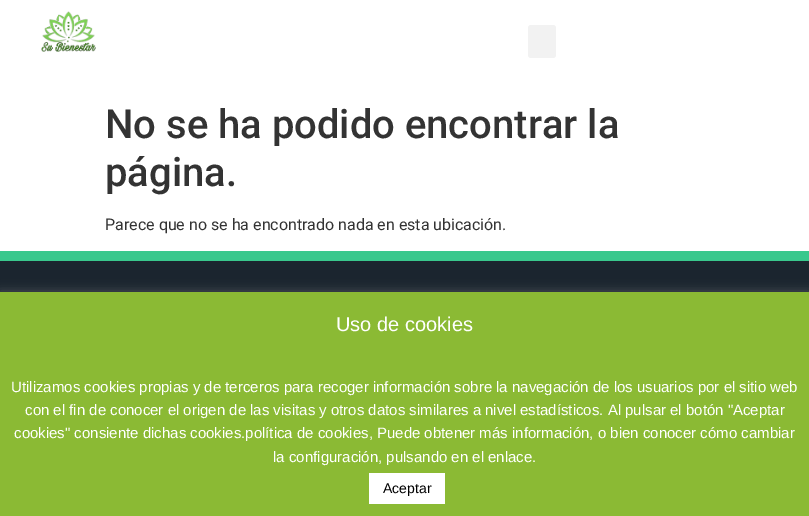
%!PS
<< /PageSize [809 516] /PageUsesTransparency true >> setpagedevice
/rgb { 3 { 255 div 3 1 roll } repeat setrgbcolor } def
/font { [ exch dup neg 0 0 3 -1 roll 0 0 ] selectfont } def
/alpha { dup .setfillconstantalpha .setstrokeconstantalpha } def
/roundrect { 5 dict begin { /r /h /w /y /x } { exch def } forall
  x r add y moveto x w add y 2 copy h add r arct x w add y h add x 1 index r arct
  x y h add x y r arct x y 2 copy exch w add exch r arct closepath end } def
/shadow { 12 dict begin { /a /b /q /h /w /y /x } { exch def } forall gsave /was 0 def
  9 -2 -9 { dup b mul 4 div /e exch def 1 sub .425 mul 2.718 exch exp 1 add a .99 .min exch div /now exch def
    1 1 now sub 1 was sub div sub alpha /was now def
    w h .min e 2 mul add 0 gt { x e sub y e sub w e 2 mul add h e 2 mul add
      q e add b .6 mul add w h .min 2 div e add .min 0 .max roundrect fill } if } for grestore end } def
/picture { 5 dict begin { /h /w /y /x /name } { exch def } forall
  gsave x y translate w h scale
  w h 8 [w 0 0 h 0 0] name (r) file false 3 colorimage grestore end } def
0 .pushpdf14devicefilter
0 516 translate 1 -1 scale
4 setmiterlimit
255 255 255 rgb
0 0 809 516 rectfill
(img/1.rgb) 41 11 55 41 picture
242 242 242 rgb
528 25 28 33 3 roundrect fill
27 37 47 rgb
0 261 809 31 rectfill
57 200 141 rgb
0 251 809 10 rectfill
172 171 171 rgb
0 291 809 224 0 5 0.3 shadow
139 186 52 rgb
0 292 809 224 rectfill
255 255 255 rgb
369 473 76 31 rectfill
/Roboto-Medium 40 font
51 51 51 rgb
105 138 moveto (No se ha podido encontrar la) show
105 186 moveto (página.) show
/Roboto-Regular 16 font
105 230 moveto (Parece que no se ha encontrado nada en esta ubicación.) show
/LiberationSans-Regular 20 font
255 255 255 rgb
336 331 moveto (Uso de cookies) show
/LiberationSans-Regular 15 font
[
  [(Utilizamos cookies propias y de terceros para recoger información sobre la navegación de los usuarios por el sitio web) 11 392]
  [(con el fin de conocer el origen de las visitas y otros datos similares a nivel estadísticos. Al pulsar el botón "Aceptar) 25 415]
  [(cookies" consiente dichas cookies.política de cookies, Puede obtener más información, o bien conocer cómo cambiar) 14 438]
  [(la configuración, pulsando en el enlace.) 273 462]
] { aload pop moveto show } forall
/LiberationSans-Regular 14 font
0 0 0 rgb
383 493 moveto (Aceptar) show
.poppdf14devicefilter showpage
